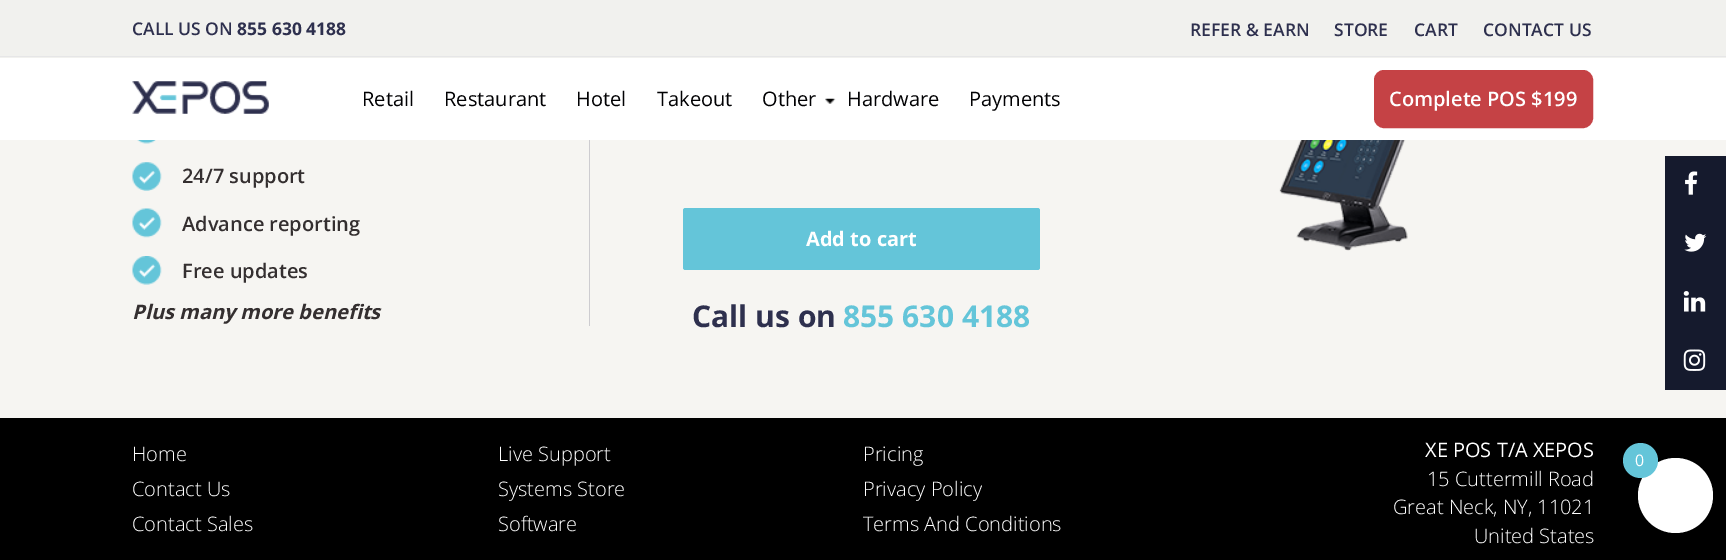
%!PS
<< /PageSize [1726 560] >> setpagedevice
/rgb { 3 { 255 div 3 1 roll } repeat setrgbcolor } def
/font { [ exch dup neg 0 0 3 -1 roll 0 0 ] selectfont } def
/circle { newpath 0 360 arc closepath } def
/roundrect { 5 dict begin { /r /h /w /y /x } { exch def } forall
  x r add y moveto x w add y 2 copy h add r arct x w add y h add x 1 index r arct
  x y h add x y r arct x y 2 copy exch w add exch r arct closepath end } def
/picture { 5 dict begin { /h /w /y /x /name } { exch def } forall
  gsave x y translate w h scale
  w h 8 [w 0 0 h 0 0] name (r) file false 3 colorimage grestore end } def
0 560 translate 1 -1 scale
4 setmiterlimit
0 0 0 rgb
0 0 1726 560 rectfill
[
  [0 58 1726 82 255 255 255]
  [0 0 1726 58 241 241 238]
  [0 56 1726 1 230 230 231]
] { aload pop rgb rectfill } forall
(img/1.rgb) 132 81 137 33 picture
(img/2.rgb) 825 98 11 6 picture
197 66 69 rgb
1375.5 71.5 216 55 8.5 roundrect gsave fill grestore
3 setlinewidth
stroke
246 245 242 rgb
0 140 1726 278 rectfill
205 204 208 rgb
589 140 1 186 rectfill
(img/3.rgb) 137 140 19 4 picture
(img/4.rgb) 132 162 30 29 picture
(img/5.rgb) 132 208 30 30 picture
(img/6.rgb) 132 256 30 29 picture
100 197 217 rgb
683 208 357 62 2.5 roundrect fill
(img/7.rgb) 1279 140 129 111 picture
21 26 45 rgb
1665 156 61 234 rectfill
(img/8.rgb) 1685 171 13 24 picture
(img/9.rgb) 1684 233 23 19 picture
(img/10.rgb) 1683 291 23 21 picture
(img/11.rgb) 1683 349 23 22 picture
255 255 255 rgb
1675.5 495.5 37.5 circle fill
100 197 217 rgb
1640.5 460.5 17.5 circle fill
/OpenSans-SemiBold 17.5 font
46 48 78 rgb
132 35 moveto (CALL US ON) show
/OpenSans-Bold 17.5 font
237 35 moveto (855 630 4188) show
/OpenSans-SemiBold 17.5 font
[
  [(REFER & EARN) 1190 36]
  [(STORE) 1334 36]
  [(CART) 1414 36]
  [(CONTACT US) 1483 36]
] { aload pop moveto show } forall
/OpenSans-Regular 20 font
1 1 3 rgb
[
  [(Retail) 362 106]
  [(Restaurant) 444 106]
  [(Hotel) 576 106]
  [(Takeout) 657 106]
  [(Other) 762 106]
  [(Hardware) 847 106]
  [(Payments) 969 106]
] { aload pop moveto show } forall
/OpenSans-SemiBold 20 font
255 255 255 rgb
1389 106 moveto (Complete POS $199) show
52 47 48 rgb
[
  [(24/7 support) 182 183]
  [(Advance reporting) 182 231]
  [(Free updates) 182 278]
] { aload pop moveto show } forall
/OpenSans-BoldItalic 20 font
132 319 moveto (Plus many more benefits) show
/OpenSans-Bold 20 font
255 255 255 rgb
806 246 moveto (Add to cart) show
/OpenSans-Bold 30 font
46 48 78 rgb
692 327 moveto (Call us on) show
100 197 217 rgb
843 327 moveto (855 630 4188) show
/OpenSans-Light 20 font
255 255 255 rgb
[
  [(Home) 132 461]
  [(Contact Us) 132 496]
  [(Contact Sales) 132 531]
  [(Live Support) 498 461]
  [(Systems Store) 498 496]
  [(Software) 498 531]
  [(Pricing) 863 461]
  [(Privacy Policy) 863 496]
  [(Terms And Conditions) 863 531]
] { aload pop moveto show } forall
/OpenSans-Regular 20 font
1425 457 moveto (XE POS T/A XEPOS) show
/OpenSans-Light 20 font
[
  [(15 Cuttermill Road) 1427 486]
  [(Great Neck, NY, 11021) 1393 514]
  [(United States) 1474 543]
] { aload pop moveto show } forall
/OpenSans-Regular 16 font
1635 466 moveto (0) show
showpage
